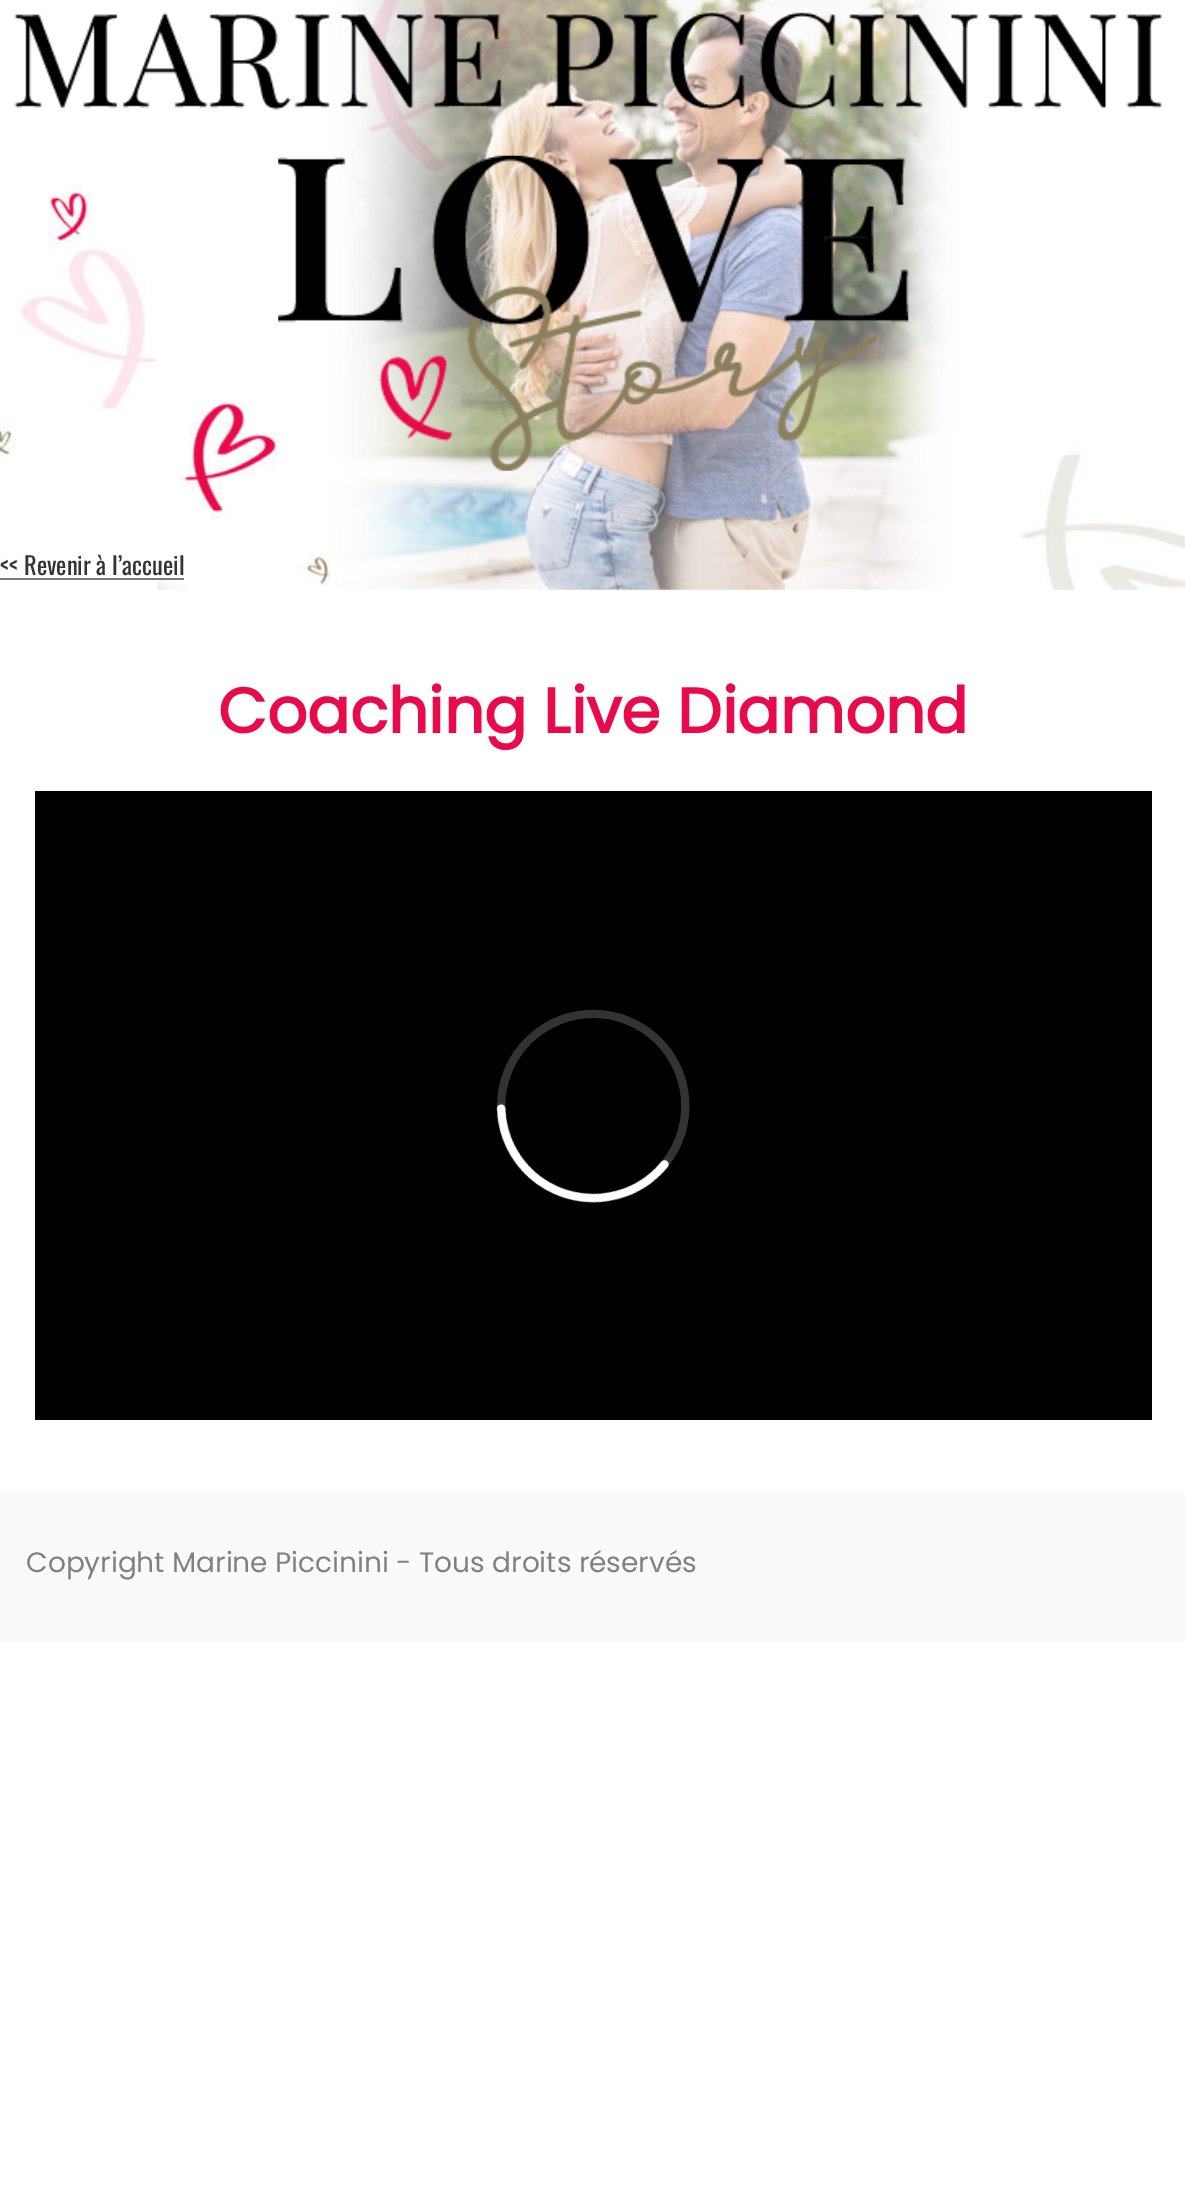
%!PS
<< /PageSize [1185 2192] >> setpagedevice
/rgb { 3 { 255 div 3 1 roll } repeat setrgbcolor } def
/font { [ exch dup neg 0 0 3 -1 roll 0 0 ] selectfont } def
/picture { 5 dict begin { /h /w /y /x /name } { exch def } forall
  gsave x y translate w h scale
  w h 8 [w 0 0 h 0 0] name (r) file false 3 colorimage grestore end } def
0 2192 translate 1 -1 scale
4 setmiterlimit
255 255 255 rgb
0 0 1185 2192 rectfill
(img/1.rgb) 0 0 1185 590 picture
(img/2.rgb) 14 12 1149 98 picture
(img/3.rgb) 278 155 631 316 picture
122 122 122 rgb
0 578 184 2 rectfill
0 0 0 rgb
35 791 1117 218 rectfill
(img/4.rgb) 35 1009 1117 411 picture
250 250 250 rgb
0 1491 1185 152 rectfill
/Oswald-Regular 24.5 font
51 51 51 rgb
0 575 moveto (<< Revenir à l’accueil) show
/Poppins-Bold 63 font
232 10 74 rgb
218 733 moveto (Coaching Live Diamond) show
/Poppins-Regular 28 font
128 128 128 rgb
26 1572 moveto (Copyright Marine Piccinini - Tous droits réservés) show
showpage
